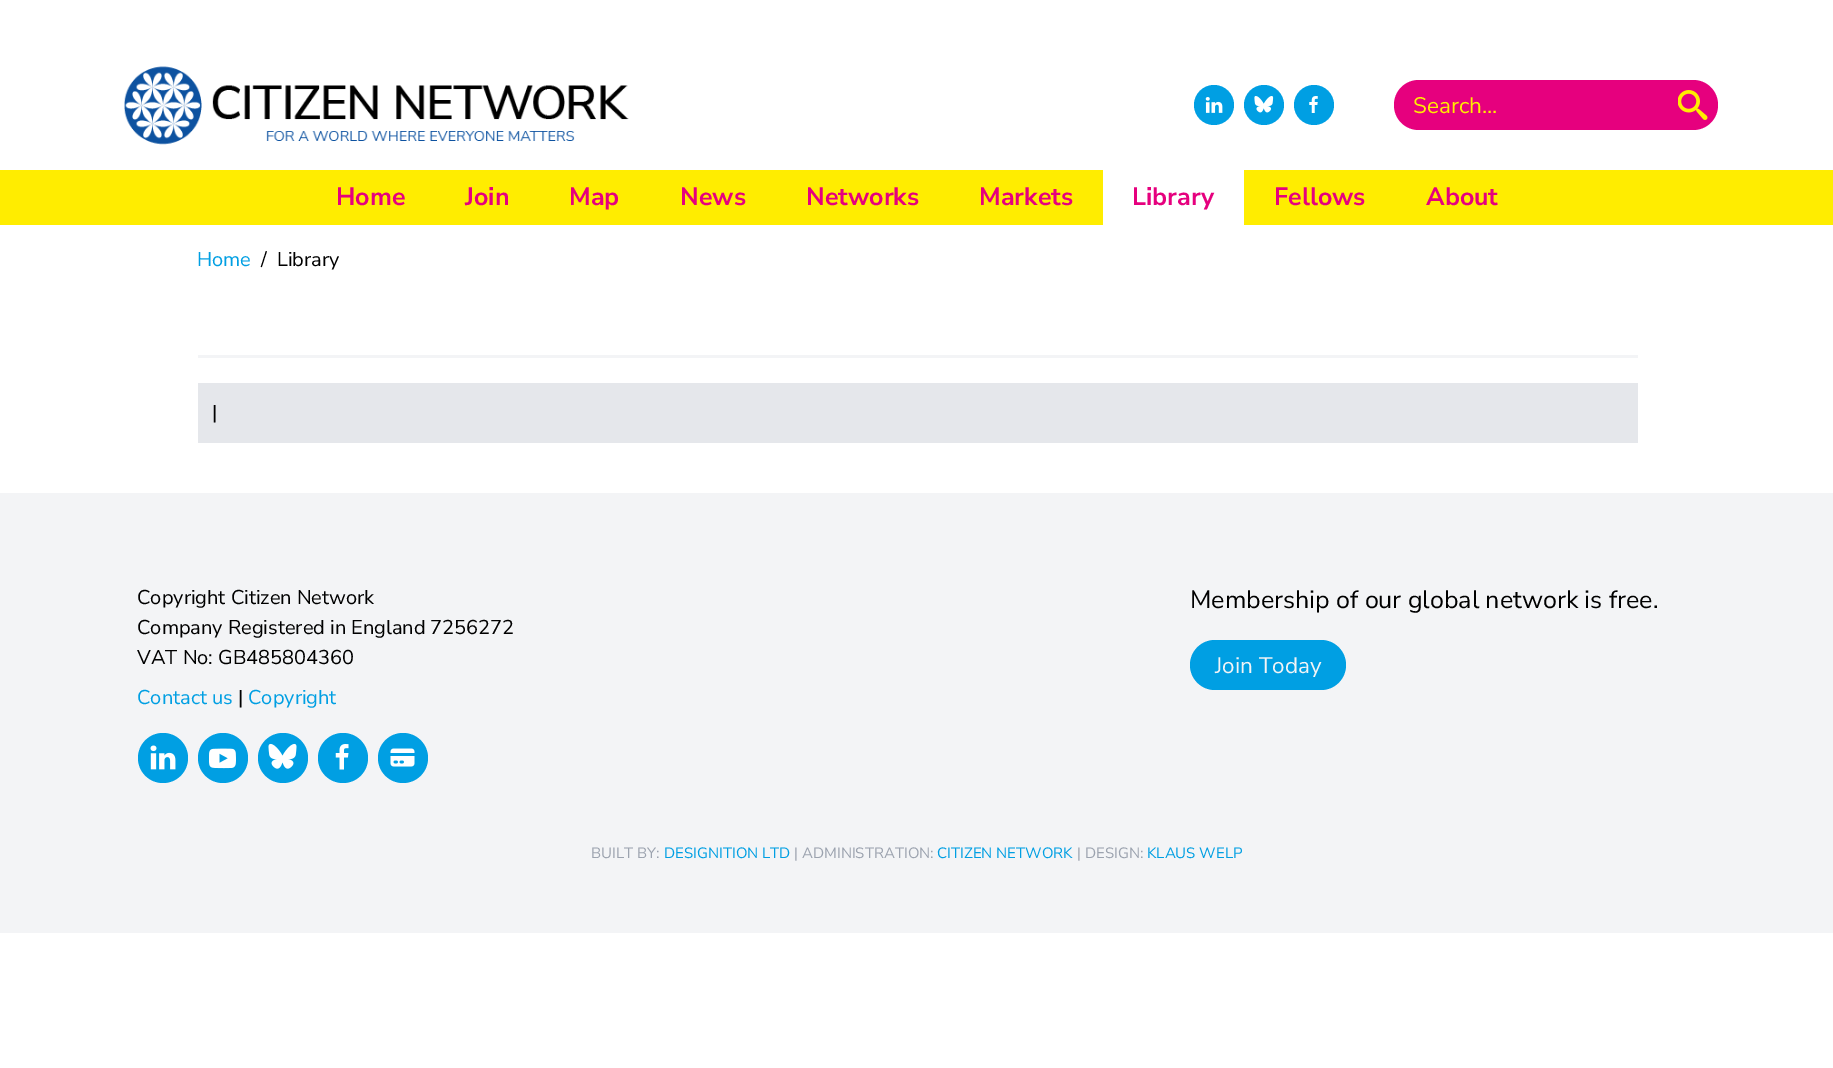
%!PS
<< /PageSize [1833 1068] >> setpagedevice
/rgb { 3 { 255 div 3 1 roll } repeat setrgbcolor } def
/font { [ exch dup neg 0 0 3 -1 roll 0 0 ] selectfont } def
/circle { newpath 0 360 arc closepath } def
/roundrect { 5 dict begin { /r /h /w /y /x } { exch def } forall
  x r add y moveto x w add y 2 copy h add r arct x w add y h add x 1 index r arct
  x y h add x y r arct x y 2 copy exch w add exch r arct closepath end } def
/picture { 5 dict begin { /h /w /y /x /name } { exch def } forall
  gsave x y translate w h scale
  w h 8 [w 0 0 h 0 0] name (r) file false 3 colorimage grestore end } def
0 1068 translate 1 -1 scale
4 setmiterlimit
255 255 255 rgb
0 0 1833 1068 rectfill
(img/1.rgb) 124 66 505 79 picture
0 159 227 rgb
1214 105 20 circle fill
(img/2.rgb) 1205 97 18 16 picture
1264 105 20 circle fill
(img/3.rgb) 1254 96 20 17 picture
1314 105 20 circle fill
(img/4.rgb) 1309 96 9 17 picture
230 0 126 rgb
1419 80 moveto 1668 80 lineto 1668 130 lineto 1419 130 lineto 1405 130 1394 119 1394 105 curveto 1394 91 1405 80 1419 80 curveto closepath fill
1668 80 moveto 1693 80 lineto 1707 80 1718 91 1718 105 curveto 1718 119 1707 130 1693 130 curveto 1668 130 lineto closepath fill
(img/5.rgb) 1678 90 30 30 picture
[
  [0 170 1833 55 255 237 0]
  [1103 170 141 55 255 255 255]
  [198 355 1440 3 243 244 246]
  [198 383 1440 60 229 231 235]
  [0 493 1833 440 243 244 246]
] { aload pop rgb rectfill } forall
0 159 227 rgb
163 758 25 circle fill
(img/6.rgb) 150 745 26 25 picture
223 758 25 circle fill
(img/7.rgb) 209 748 27 21 picture
283 758 25 circle fill
(img/8.rgb) 268 743 29 26 picture
343 758 25 circle fill
(img/9.rgb) 335 744 14 26 picture
403 758 25 circle fill
(img/10.rgb) 390 748 25 19 picture
1190 640 156 50 25 roundrect fill
/NunitoSans-Regular 22.5 font
255 237 0 rgb
1413 113 moveto (Search...) show
/NunitoSans-Bold 25 font
230 0 126 rgb
[
  [(Home) 336 205]
  [(Join) 465 205]
  [(Map) 569 205]
  [(News) 680 205]
  [(Networks) 806 205]
  [(Markets) 979 205]
  [(Library) 1132 205]
  [(Fellows) 1274 205]
  [(About) 1426 205]
] { aload pop moveto show } forall
/NunitoSans-Regular 20 font
0 159 227 rgb
197 266 moveto (Home) show
0 0 0 rgb
[
  [(/) 261 266]
  [(Library) 277 266]
  [(|) 212 419]
  [(Copyright Citizen Network) 137 604]
  [(Company Registered in England 7256272) 137 634]
  [(VAT No: GB485804360) 137 664]
] { aload pop moveto show } forall
0 159 227 rgb
137 704 moveto (Contact us) show
0 0 0 rgb
238 704 moveto (|) show
0 159 227 rgb
248 704 moveto (Copyright) show
/NunitoSans-Regular 25 font
0 0 0 rgb
1190 608 moveto (Membership of our global network is free.) show
/NunitoSans-Regular 22.5 font
243 244 246 rgb
1215 673 moveto (Join Today) show
/NunitoSans-Regular 15 font
156 163 175 rgb
591 858 moveto (BUILT BY:) show
0 159 227 rgb
664 858 moveto (DESIGNITION LTD) show
156 163 175 rgb
794 858 moveto (| ADMINISTRATION:) show
0 159 227 rgb
937 858 moveto (CITIZEN NETWORK) show
156 163 175 rgb
1077 858 moveto (| DESIGN:) show
0 159 227 rgb
1147 858 moveto (KLAUS WELP) show
showpage
